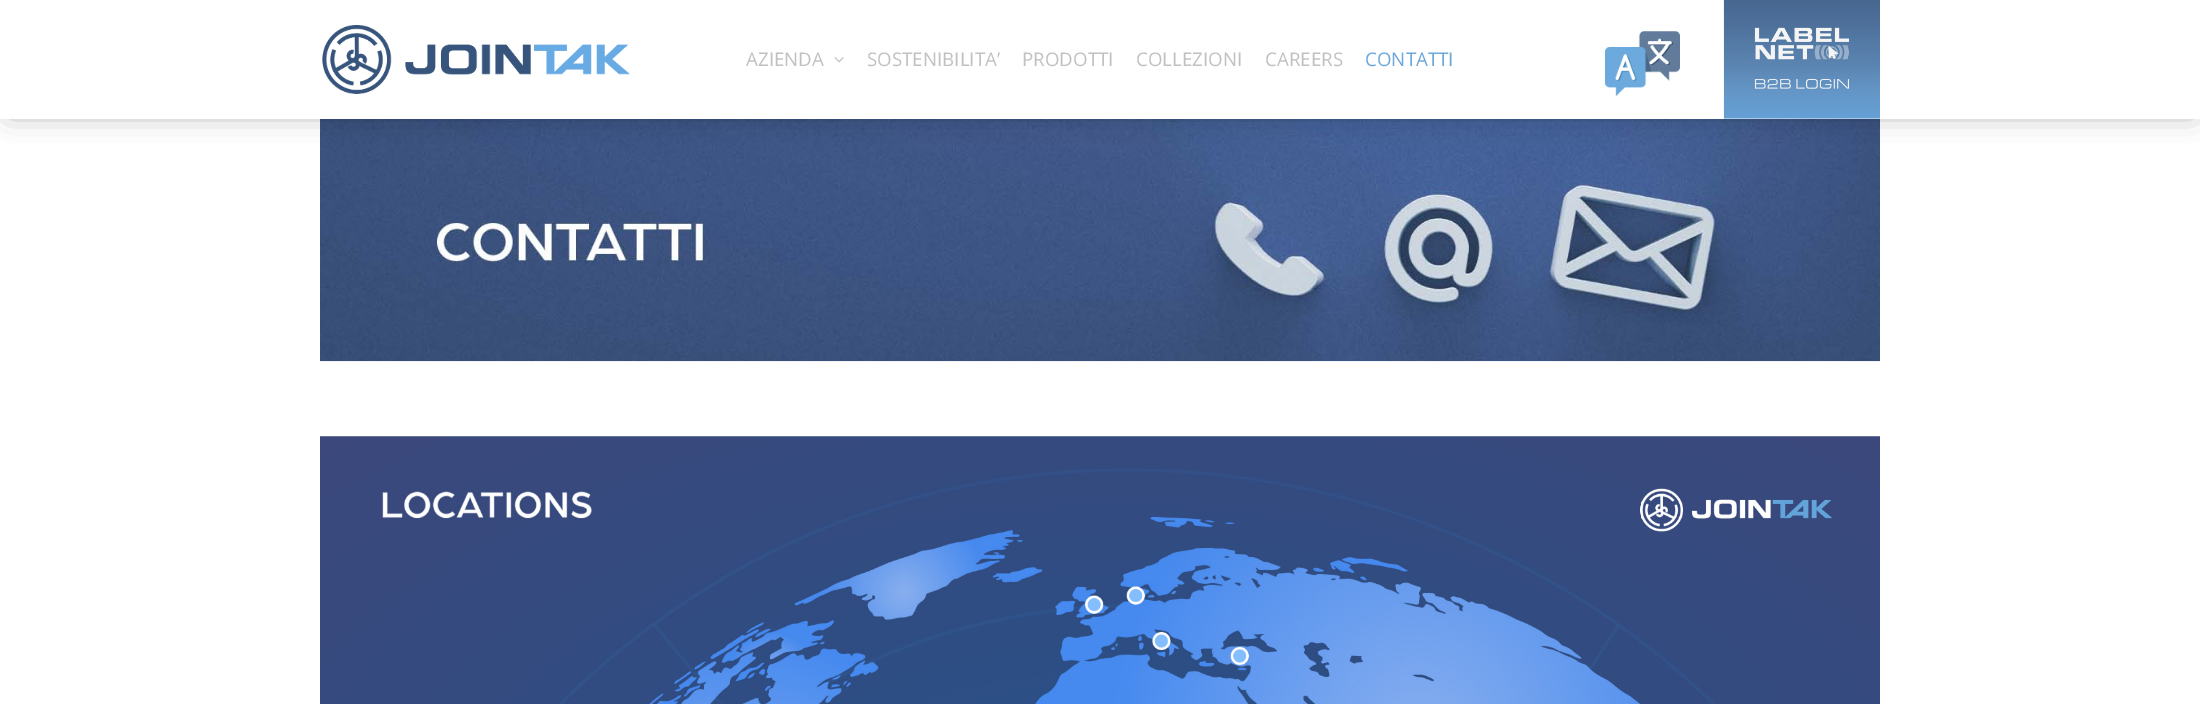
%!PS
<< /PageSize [2200 704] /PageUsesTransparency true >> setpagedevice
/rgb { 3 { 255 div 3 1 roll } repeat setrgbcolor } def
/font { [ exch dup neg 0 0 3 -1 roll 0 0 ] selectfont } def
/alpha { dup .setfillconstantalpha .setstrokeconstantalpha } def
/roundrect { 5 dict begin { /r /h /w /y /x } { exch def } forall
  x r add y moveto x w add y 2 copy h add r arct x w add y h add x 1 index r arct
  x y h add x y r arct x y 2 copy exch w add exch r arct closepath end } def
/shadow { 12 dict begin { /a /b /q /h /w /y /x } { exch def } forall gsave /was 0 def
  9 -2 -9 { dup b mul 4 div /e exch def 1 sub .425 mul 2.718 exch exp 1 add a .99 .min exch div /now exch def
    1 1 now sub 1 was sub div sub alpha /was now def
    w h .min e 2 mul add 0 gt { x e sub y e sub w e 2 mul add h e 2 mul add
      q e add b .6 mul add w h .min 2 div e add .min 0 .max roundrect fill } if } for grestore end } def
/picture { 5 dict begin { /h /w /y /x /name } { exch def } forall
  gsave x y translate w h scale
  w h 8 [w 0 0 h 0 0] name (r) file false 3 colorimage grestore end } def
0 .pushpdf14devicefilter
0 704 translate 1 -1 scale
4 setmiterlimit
255 255 255 rgb
0 0 2200 704 rectfill
(img/5.rgb) 320 119 1560 243 picture
0 0 0 rgb
10 10 2183 101 0 14.5 0.4 shadow
255 255 255 rgb
0 0 2200 119 rectfill
(img/1.rgb) 322 25 308 69 picture
(img/2.rgb) 834 57 10 6 picture
(img/3.rgb) 1605 31 75 66 picture
(img/4.rgb) 1723 0 157 119 picture
(img/6.rgb) 320 436 1560 268 picture
/OpenSans-Regular 18.75 font
193 193 193 rgb
[
  [(AZIENDA) 746 66]
  [(SOSTENIBILITA’) 867 66]
  [(PRODOTTI) 1022 66]
  [(COLLEZIONI) 1136 66]
  [(CAREERS) 1265 66]
] { aload pop moveto show } forall
109 168 219 rgb
1365 66 moveto (CONTATTI) show
.poppdf14devicefilter showpage
